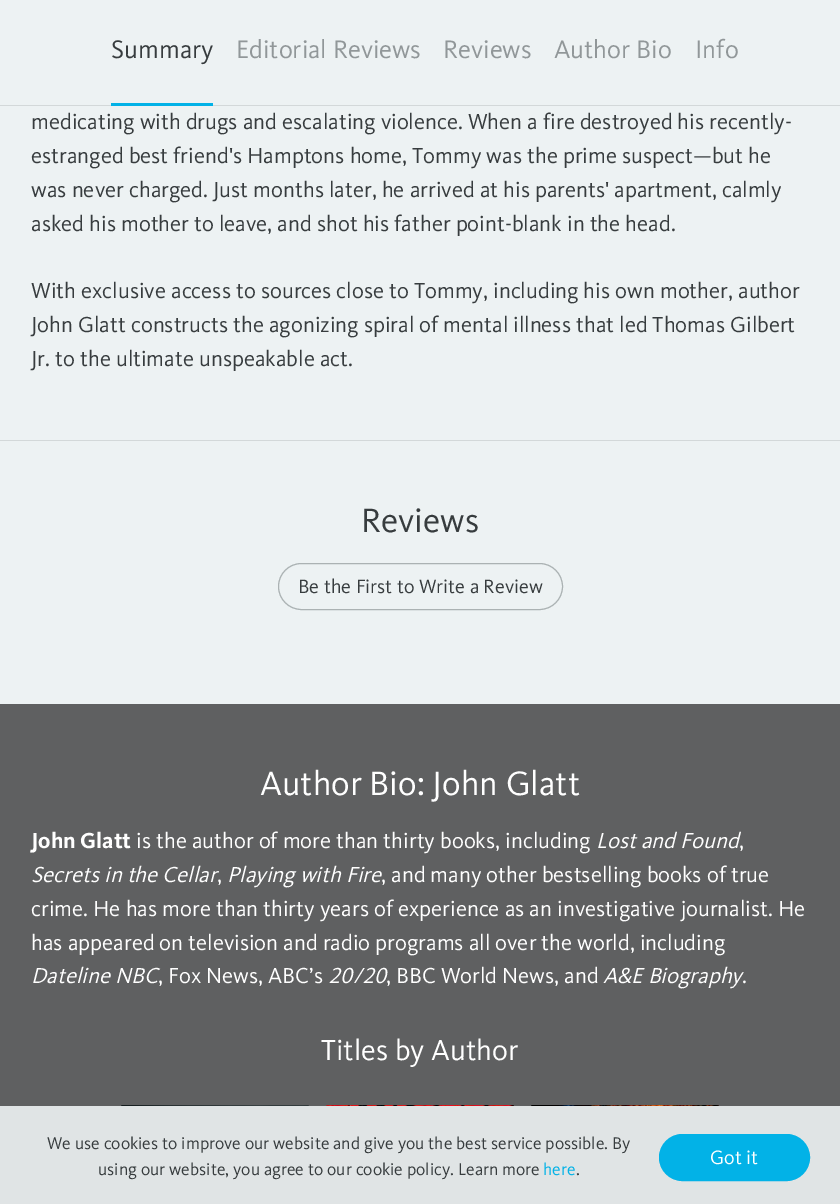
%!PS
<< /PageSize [840 1204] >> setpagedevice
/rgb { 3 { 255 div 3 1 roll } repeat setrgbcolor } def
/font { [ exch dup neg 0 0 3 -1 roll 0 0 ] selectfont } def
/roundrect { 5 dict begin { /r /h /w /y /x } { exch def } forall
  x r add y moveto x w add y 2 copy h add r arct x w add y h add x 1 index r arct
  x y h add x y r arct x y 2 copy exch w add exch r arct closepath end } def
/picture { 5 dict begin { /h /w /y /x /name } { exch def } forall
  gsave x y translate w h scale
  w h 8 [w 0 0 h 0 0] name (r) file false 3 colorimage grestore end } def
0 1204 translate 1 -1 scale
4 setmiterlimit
237 242 243 rgb
0 0 840 1204 rectfill
[
  [0 105 840 1 211 216 217]
  [111 103 102 3 2 178 231]
  [0 440 840 1 211 216 217]
] { aload pop rgb rectfill } forall
171 178 179 rgb
278.5 563.5 284 46 23 roundrect stroke
95 96 97 rgb
0 704 840 402 rectfill
(img/1.rgb) 121 1105 188 1 picture
(img/2.rgb) 326 1105 188 1 picture
(img/3.rgb) 531 1105 188 1 picture
224 228 229 rgb
0 1106 840 98 rectfill
2 178 231 rgb
659.5 1134.5 150 46 23 roundrect gsave fill grestore
stroke
/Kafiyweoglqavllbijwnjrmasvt-Regular 26.25 font
55 60 62 rgb
111 58 moveto (Summary) show
145 151 153 rgb
[
  [(Editorial Reviews) 236 58]
  [(Reviews) 443 58]
  [(Author Bio) 554 58]
  [(Info) 695 58]
] { aload pop moveto show } forall
/Kafiyweoglqavllbijwnjrmasvt-Regular 22.5 font
55 60 62 rgb
[
  [(medicating with drugs and escalating violence. When a fire destroyed his recently-) 31 129]
  [(estranged best friend's Hamptons home, Tommy was the prime suspect—but he) 31 163]
  [(was never charged. Just months later, he arrived at his parents' apartment, calmly) 31 197]
  [(asked his mother to leave, and shot his father point-blank in the head.) 31 231]
  [(With exclusive access to sources close to Tommy, including his own mother, author) 31 298]
  [(John Glatt constructs the agonizing spiral of mental illness that led Thomas Gilbert) 31 332]
  [(Jr. to the ultimate unspeakable act.) 31 366]
] { aload pop moveto show } forall
/Kafiyweoglqavllbijwnjrmasvt-Regular 35 font
361 532 moveto (Reviews) show
/Kafiyweoglqavllbijwnjrmasvt-Regular 20 font
298 593 moveto (Be the First to Write a Review) show
/Kafiyweoglqavllbijwnjrmasvt-Regular 35 font
255 255 255 rgb
260 795 moveto (Author Bio: John Glatt) show
/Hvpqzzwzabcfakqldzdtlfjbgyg-Bold 22.5 font
31 848 moveto (John Glatt) show
/Kafiyweoglqavllbijwnjrmasvt-Regular 22.5 font
136 848 moveto (is the author of more than thirty books, including) show
/Kafiyweoglqavllbijwnjrmasvt-Italic 22.5 font
596 848 moveto (Lost and Found) show
/Kafiyweoglqavllbijwnjrmasvt-Regular 22.5 font
739 848 moveto (,) show
/Kafiyweoglqavllbijwnjrmasvt-Italic 22.5 font
31 882 moveto (Secrets in the Cellar) show
227 882 moveto (Playing with Fire) show
/Kafiyweoglqavllbijwnjrmasvt-Regular 22.5 font
[
  [(, and many other bestselling books of true) 381 882]
  [(,) 217 882]
  [(crime. He has more than thirty years of experience as an investigative journalist. He) 31 916]
  [(has appeared on television and radio programs all over the world, including) 31 950]
] { aload pop moveto show } forall
/Kafiyweoglqavllbijwnjrmasvt-Italic 22.5 font
31 983 moveto (Dateline NBC) show
/Kafiyweoglqavllbijwnjrmasvt-Regular 22.5 font
158 983 moveto (, Fox News, ABC’s) show
/Kafiyweoglqavllbijwnjrmasvt-Italic 22.5 font
328 983 moveto (20/20) show
/Kafiyweoglqavllbijwnjrmasvt-Regular 22.5 font
386 983 moveto (, BBC World News, and) show
/Kafiyweoglqavllbijwnjrmasvt-Italic 22.5 font
603 983 moveto (A&E Biography) show
/Kafiyweoglqavllbijwnjrmasvt-Regular 22.5 font
742 983 moveto (.) show
/Kafiyweoglqavllbijwnjrmasvt-Regular 30 font
321 1060 moveto (Titles by Author) show
/Kafiyweoglqavllbijwnjrmasvt-Regular 17.5 font
55 60 62 rgb
47 1149 moveto (We use cookies to improve our website and give you the best service possible. By) show
98 1175 moveto (using our website, you agree to our cookie policy. Learn more) show
2 178 231 rgb
543 1175 moveto (here) show
55 60 62 rgb
576 1175 moveto (.) show
/Kafiyweoglqavllbijwnjrmasvt-Regular 20 font
255 255 255 rgb
710 1164 moveto (Got it) show
showpage
